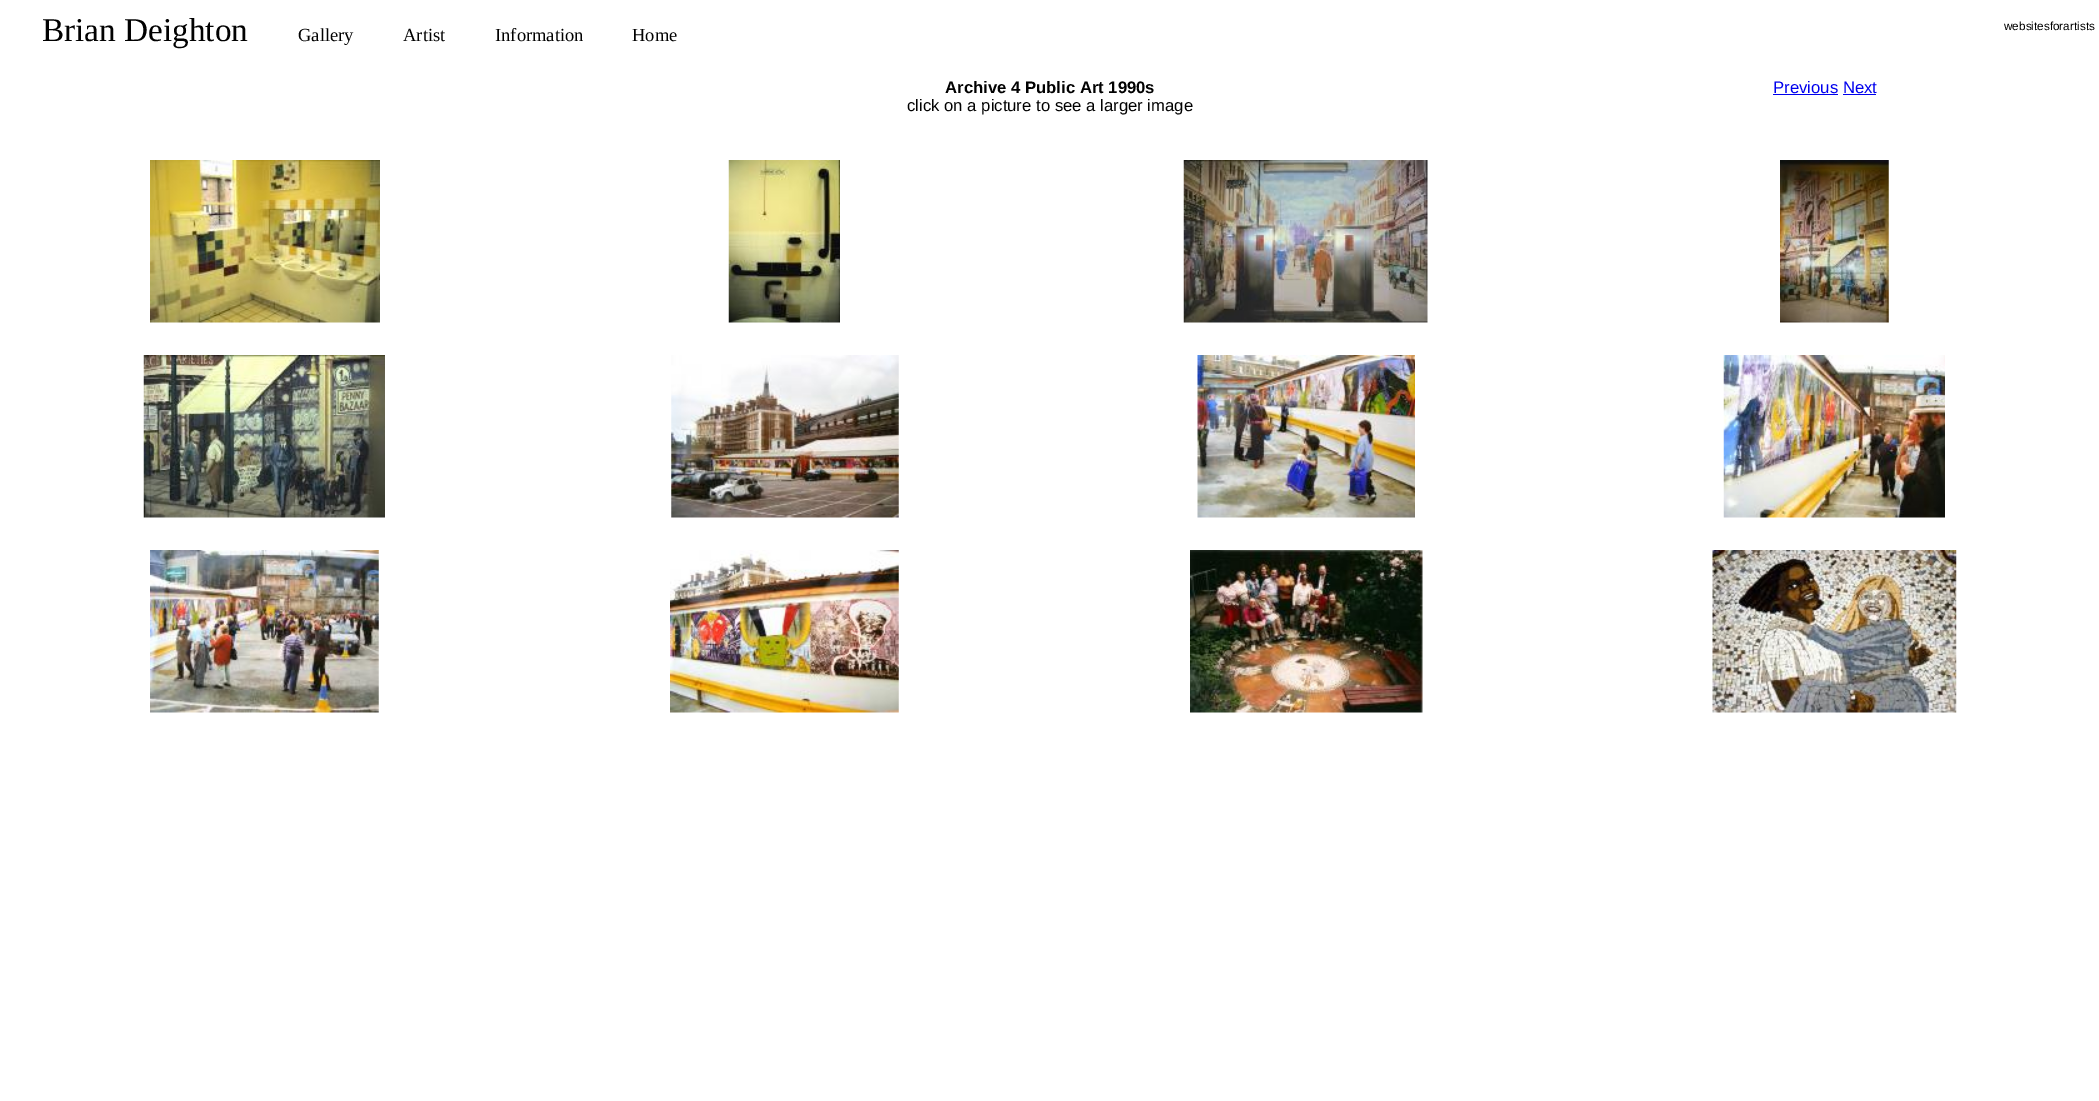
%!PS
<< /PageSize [2099 1101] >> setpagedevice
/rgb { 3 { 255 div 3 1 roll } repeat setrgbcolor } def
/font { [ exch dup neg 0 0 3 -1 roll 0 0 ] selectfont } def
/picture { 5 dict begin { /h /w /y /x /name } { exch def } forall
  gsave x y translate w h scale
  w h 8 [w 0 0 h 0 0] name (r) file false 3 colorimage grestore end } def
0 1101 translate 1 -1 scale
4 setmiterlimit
255 255 255 rgb
0 0 2099 1101 rectfill
0 0 238 rgb
1773 94 65 1 rectfill
1843 94 33 1 rectfill
(img/1.rgb) 150 160 230 163 picture
(img/2.rgb) 728 160 112 163 picture
(img/3.rgb) 1183 160 245 163 picture
(img/4.rgb) 1780 160 109 163 picture
(img/5.rgb) 143 355 242 163 picture
(img/6.rgb) 671 355 228 163 picture
(img/7.rgb) 1197 355 218 163 picture
(img/8.rgb) 1723 355 222 163 picture
(img/9.rgb) 150 550 229 163 picture
(img/10.rgb) 670 550 229 163 picture
(img/11.rgb) 1190 550 233 163 picture
(img/12.rgb) 1712 550 245 163 picture
/LiberationSerif-Regular 33.25 font
1 1 1 rgb
42 41 moveto (Brian Deighton) show
/LiberationSans-Regular 11.75 font
2004 30 moveto (websitesforartists) show
/LiberationSerif-Regular 18.5 font
[
  [(Gallery) 298 41]
  [(Artist) 403 41]
  [(Information) 495 41]
  [(Home) 632 41]
] { aload pop moveto show } forall
/LiberationSans-Bold 16.7 font
945 93 moveto (Archive 4 Public Art 1990s) show
/LiberationSans-Regular 16.7 font
907 111 moveto (click on a picture to see a larger image) show
0 0 238 rgb
1773 93 moveto (Previous Next) show
showpage
